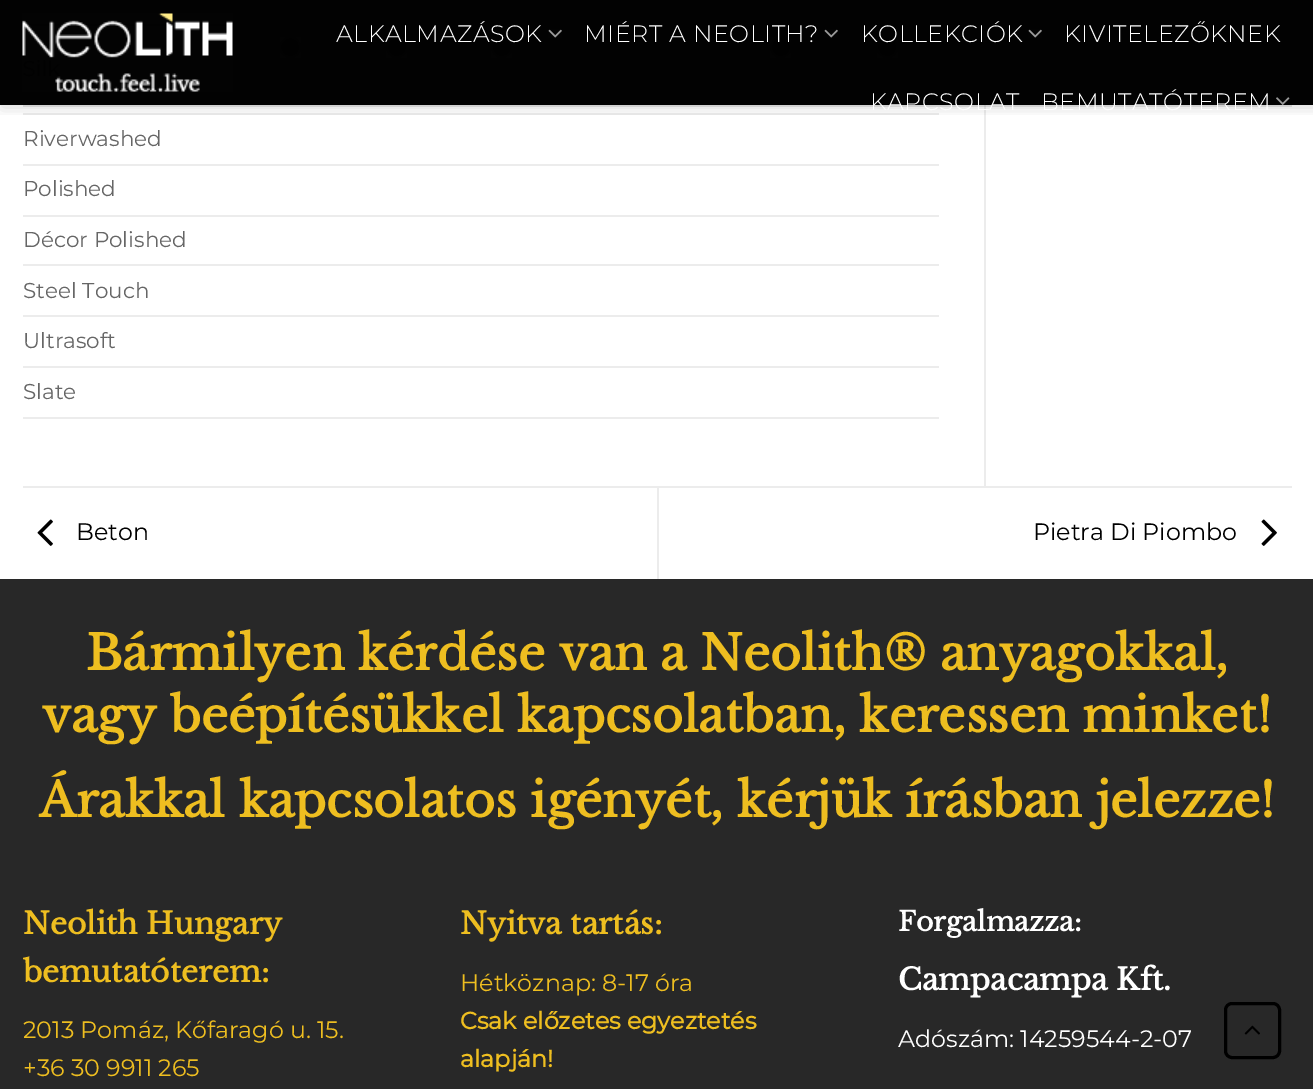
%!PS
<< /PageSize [1313 1089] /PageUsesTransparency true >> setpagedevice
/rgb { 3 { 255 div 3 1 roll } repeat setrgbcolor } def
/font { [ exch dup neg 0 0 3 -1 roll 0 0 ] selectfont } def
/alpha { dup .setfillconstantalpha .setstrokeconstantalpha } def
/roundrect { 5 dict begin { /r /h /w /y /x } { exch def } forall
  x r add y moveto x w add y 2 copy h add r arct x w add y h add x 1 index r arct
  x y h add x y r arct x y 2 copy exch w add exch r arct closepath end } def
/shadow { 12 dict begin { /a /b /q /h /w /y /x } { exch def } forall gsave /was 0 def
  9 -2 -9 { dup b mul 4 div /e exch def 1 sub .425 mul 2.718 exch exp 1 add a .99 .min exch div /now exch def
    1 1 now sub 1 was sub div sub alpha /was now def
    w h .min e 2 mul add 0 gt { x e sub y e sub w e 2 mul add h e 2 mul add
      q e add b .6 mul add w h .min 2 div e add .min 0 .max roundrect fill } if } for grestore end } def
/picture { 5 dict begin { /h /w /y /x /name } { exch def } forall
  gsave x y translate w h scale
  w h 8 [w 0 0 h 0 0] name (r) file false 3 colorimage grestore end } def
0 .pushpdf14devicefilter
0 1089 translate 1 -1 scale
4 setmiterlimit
255 255 255 rgb
0 0 1313 1089 rectfill
2 2 2 rgb
0 0 1313 105 rectfill
236 236 236 rgb
984 105 2 381 rectfill
(img/4.rgb) 280 37 21 21 picture
(img/5.rgb) 386 37 21 21 picture
(img/6.rgb) 491 37 21 21 picture
(img/6.rgb) 770 37 21 21 picture
(img/7.rgb) 877 37 21 21 picture
23 113 916 2 rectfill
gsave
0 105 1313 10 rectclip
0 0 0 rgb
2 2 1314 105 0 7.5 0.15 shadow
grestore
(img/1.rgb) 22 13 211 79 picture
(img/2.rgb) 548 29 14 9 picture
(img/2.rgb) 824 29 14 9 picture
(img/2.rgb) 1028 29 14 9 picture
(img/3.rgb) 1276 97 14 8 picture
0.1 alpha
[
  [23 105 1269 2 0 0 0]
] { aload pop rgb rectfill } forall
1 alpha
[
  [23 164 916 2 236 236 236]
  [23 215 916 2 236 236 236]
  [23 264 916 2 236 236 236]
  [23 315 916 2 236 236 236]
  [23 366 916 2 236 236 236]
  [23 417 916 2 236 236 236]
  [23 486 1269 2 236 236 236]
] { aload pop rgb rectfill } forall
(img/8.rgb) 37 519 16 27 picture
657 488 2 91 rectfill
(img/9.rgb) 1261 519 16 27 picture
40 40 40 rgb
0 579 1313 510 rectfill
0 0 0 rgb
3 setlinewidth
1225.5 1003.5 54 54 6.5 roundrect stroke
(img/10.rgb) 1244 1025 16 10 picture
/Montserrat-Light 23.75 font
255 255 255 rgb
336 42 moveto 0.5 0 (ALKALMAZÁSOK) ashow
584 42 moveto 0.5 0 (MIÉRT A NEOLITH?) ashow
861 42 moveto 0.5 0 (KOLLEKCIÓK) ashow
1064 42 moveto 0.5 0 (KIVITELEZŐKNEK) ashow
870 110 moveto 0.5 0 (KAPCSOLAT) ashow
1041 110 moveto 0.5 0 (BEMUTATÓTEREM) ashow
/Montserrat-Regular 21.5 font
102 102 102 rgb
[
  [(Riverwashed) 23 146]
  [(Polished) 23 196]
  [(Décor Polished) 23 247]
  [(Steel Touch) 23 298]
  [(Ultrasoft) 23 348]
  [(Slate) 23 399]
] { aload pop moveto show } forall
/Montserrat-Regular 23.75 font
0 0 0 rgb
76 540 moveto (Beton) show
1033 540 moveto (Pietra Di Piombo) show
/LibreBaskerville-Bold 47.5 font
238 190 32 rgb
[
  [(Bármilyen kérdése van a Neolith® anyagokkal,) 86 670]
  [(vagy beépítésükkel kapcsolatban, keressen minket!) 42 732]
  [(Árakkal kapcsolatos igényét, kérjük írásban jelezze!) 39 817]
] { aload pop moveto show } forall
/LibreBaskerville-Bold 29.75 font
23 934 moveto (Neolith Hungary) show
23 982 moveto (bemutatóterem:) show
/Montserrat-Regular 23.75 font
23 1038 moveto (2013 Pomáz, Kőfaragó u. 15.) show
23 1076 moveto (+36 30 9911 265) show
/LibreBaskerville-Bold 29.75 font
460 934 moveto (Nyitva tartás:) show
/Montserrat-Regular 23.75 font
460 991 moveto (Hétköznap: 8-17 óra) show
/Montserrat-Bold 23.75 font
460 1029 moveto (Csak előzetes egyeztetés) show
460 1067 moveto (alapján!) show
/LibreBaskerville-Bold 26.75 font
255 255 255 rgb
898 931 moveto (Forgalmazza:) show
/LibreBaskerville-Bold 29.75 font
898 990 moveto (Campacampa Kft.) show
/Montserrat-Regular 23.75 font
898 1047 moveto (Adószám: 14259544-2-07) show
.poppdf14devicefilter showpage
